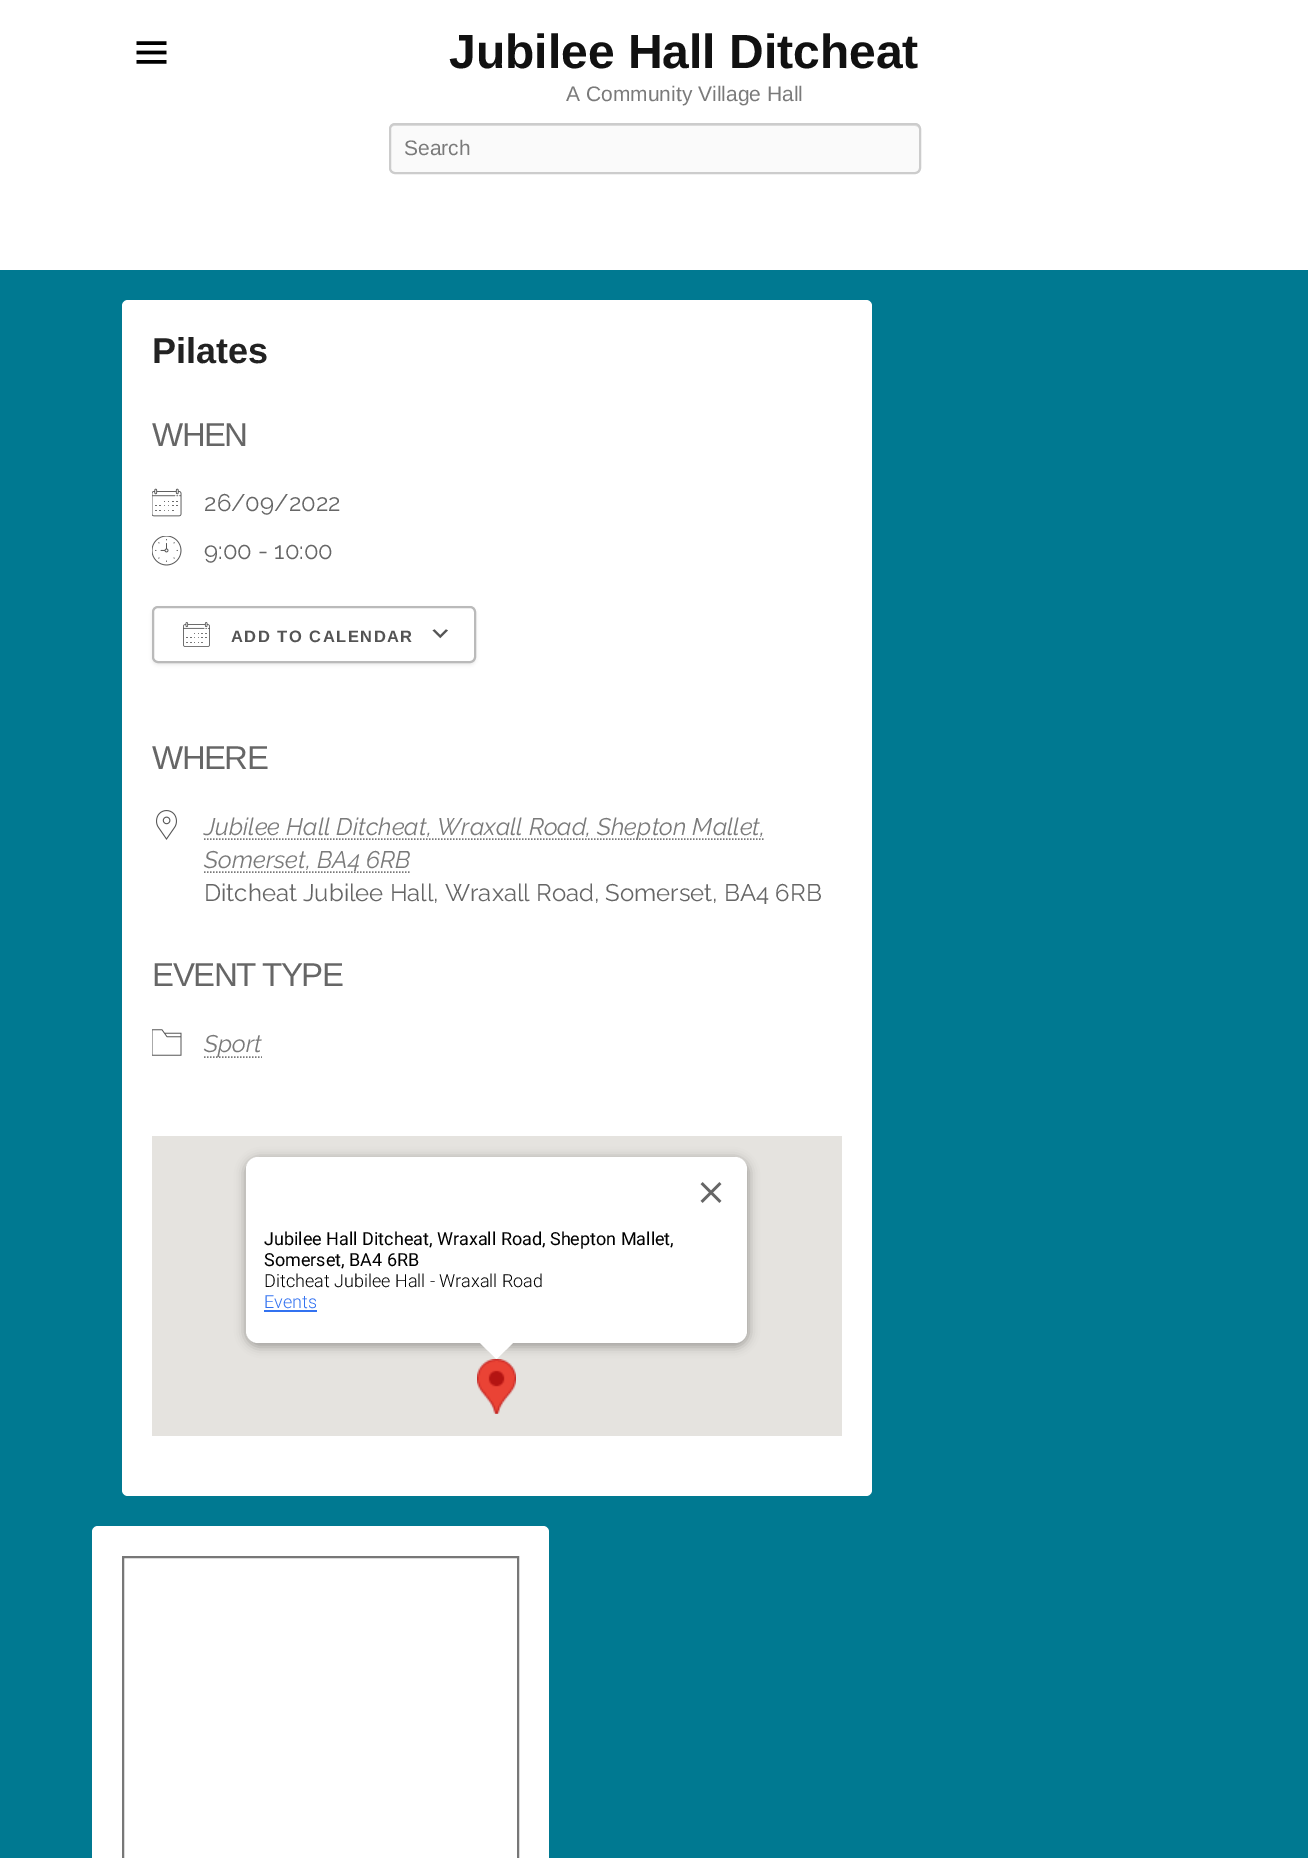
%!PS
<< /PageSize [1308 1858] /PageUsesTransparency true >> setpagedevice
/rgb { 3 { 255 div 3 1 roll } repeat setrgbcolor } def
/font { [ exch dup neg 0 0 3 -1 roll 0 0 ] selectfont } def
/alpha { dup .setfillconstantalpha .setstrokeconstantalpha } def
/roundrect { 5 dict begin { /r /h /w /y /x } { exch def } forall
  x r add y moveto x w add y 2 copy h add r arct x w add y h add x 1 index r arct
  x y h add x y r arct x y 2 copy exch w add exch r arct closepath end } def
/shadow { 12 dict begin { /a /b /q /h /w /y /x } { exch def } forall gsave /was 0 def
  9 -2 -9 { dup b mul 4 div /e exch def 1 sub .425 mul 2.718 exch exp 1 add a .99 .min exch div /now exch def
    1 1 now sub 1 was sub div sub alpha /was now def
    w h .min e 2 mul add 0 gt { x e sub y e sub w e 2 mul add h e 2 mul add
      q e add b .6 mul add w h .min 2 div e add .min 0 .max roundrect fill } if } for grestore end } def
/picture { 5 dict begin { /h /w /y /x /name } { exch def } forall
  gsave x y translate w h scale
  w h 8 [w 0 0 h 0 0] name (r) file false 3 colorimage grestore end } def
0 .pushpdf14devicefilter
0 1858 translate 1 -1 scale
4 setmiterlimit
0 121 145 rgb
0 0 1308 1858 rectfill
255 255 255 rgb
0 0 1308 270 rectfill
(img/1.rgb) 136 41 31 23 picture
250 250 250 rgb
389 123 532 51 6 roundrect fill
225 225 225 rgb
394 126 moveto 915 126 lineto 917 126 920 128 920 130 curveto 920 127 918 125 915 125 curveto 395 125 lineto 392 125 390 127 390 130 curveto 390 128 392 126 394 126 curveto closepath fill
204 204 204 rgb
2 setlinewidth
390 124 530 49 5 roundrect stroke
255 255 255 rgb
122 300 750 1196 6 roundrect fill
(img/2.rgb) 152 488 30 29 picture
(img/3.rgb) 152 536 30 30 picture
gsave
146 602 moveto 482 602 lineto 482 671 lineto 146 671 lineto closepath 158 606 moveto 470 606 lineto 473.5 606 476 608.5 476 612 curveto 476 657 lineto 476 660.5 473.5 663 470 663 curveto 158 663 lineto 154.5 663 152 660.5 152 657 curveto 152 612 lineto 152 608.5 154.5 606 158 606 curveto closepath eoclip newpath
64 64 64 rgb
152 608 324 57 6 1.5 0.1 shadow
grestore
(img/4.rgb) 432 629 16 10 picture
186 186 186 rgb
153 607 322 55 5 roundrect stroke
(img/5.rgb) 183 622 27 25 picture
(img/6.rgb) 156 810 21 30 picture
120 120 120 rgb
1.5 setlinewidth
[1.5 1.5] 0 setdash
204 839 moveto 765 839 lineto stroke
204 872 moveto 411 872 lineto stroke
(img/7.rgb) 152 1029 30 27 picture
204 1057 moveto 262 1057 lineto stroke
229 227 223 rgb
152 1136 690 300 rectfill
(img/9.rgb) 477 1359 39 55 picture
0 0 0 rgb
245 1158 504 189 14 5 0.3 shadow
255 255 255 rgb
246 1157 501 186 12 roundrect fill
(img/8.rgb) 700 1182 22 21 picture
51 114 240 rgb
264 1310 53 2 rectfill
255 255 255 rgb
479 1342 moveto 479 1341 lineto 515 1341 lineto 496.5 1359 lineto closepath fill
92 1526 457 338 6 roundrect fill
119 119 119 rgb
2 setlinewidth
[] 0 setdash
123 1557 395 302 rectstroke
/LiberationSans-Bold 48 font
17 17 17 rgb
449 68 moveto (Jubilee Hall Ditcheat) show
/LiberationSans-Regular 21 font
122 122 122 rgb
566 101 moveto (A Community Village Hall) show
404 155 moveto (Search) show
/LiberationSans-Bold 36 font
34 34 34 rgb
152 363 moveto (Pilates) show
/LiberationSans-Regular 33 font
102 102 102 rgb
152 446 moveto -1.5 0 (WHEN) ashow
/Raleway-Regular 24 font
204 511 moveto (26/09/2022) show
204 559 moveto (9:00 - 10:00) show
/LiberationSans-Bold 16.5 font
84 84 84 rgb
231 642 moveto 1.5 0 (ADD TO CALENDAR) ashow
/LiberationSans-Regular 33 font
102 102 102 rgb
152 769 moveto -1.5 0 (WHERE) ashow
/Raleway-Italic 24 font
122 122 122 rgb
204 835 moveto (Jubilee Hall Ditcheat, Wraxall Road, Shepton Mallet,) show
204 868 moveto (Somerset, BA4 6RB) show
/Raleway-Regular 24 font
102 102 102 rgb
204 901 moveto (Ditcheat Jubilee Hall, Wraxall Road, Somerset, BA4 6RB) show
/LiberationSans-Regular 33 font
152 986 moveto -1.5 0 (EVENT TYPE) ashow
/Raleway-Italic 24 font
122 122 122 rgb
204 1052 moveto (Sport) show
/Roboto-Regular 18 font
0 0 0 rgb
264 1245 moveto (Jubilee Hall Ditcheat, Wraxall Road, Shepton Mallet,) show
264 1266 moveto (Somerset, BA4 6RB) show
/Roboto-Light 18 font
264 1287 moveto (Ditcheat Jubilee Hall - Wraxall Road) show
51 114 240 rgb
264 1308 moveto (Events) show
.poppdf14devicefilter showpage
